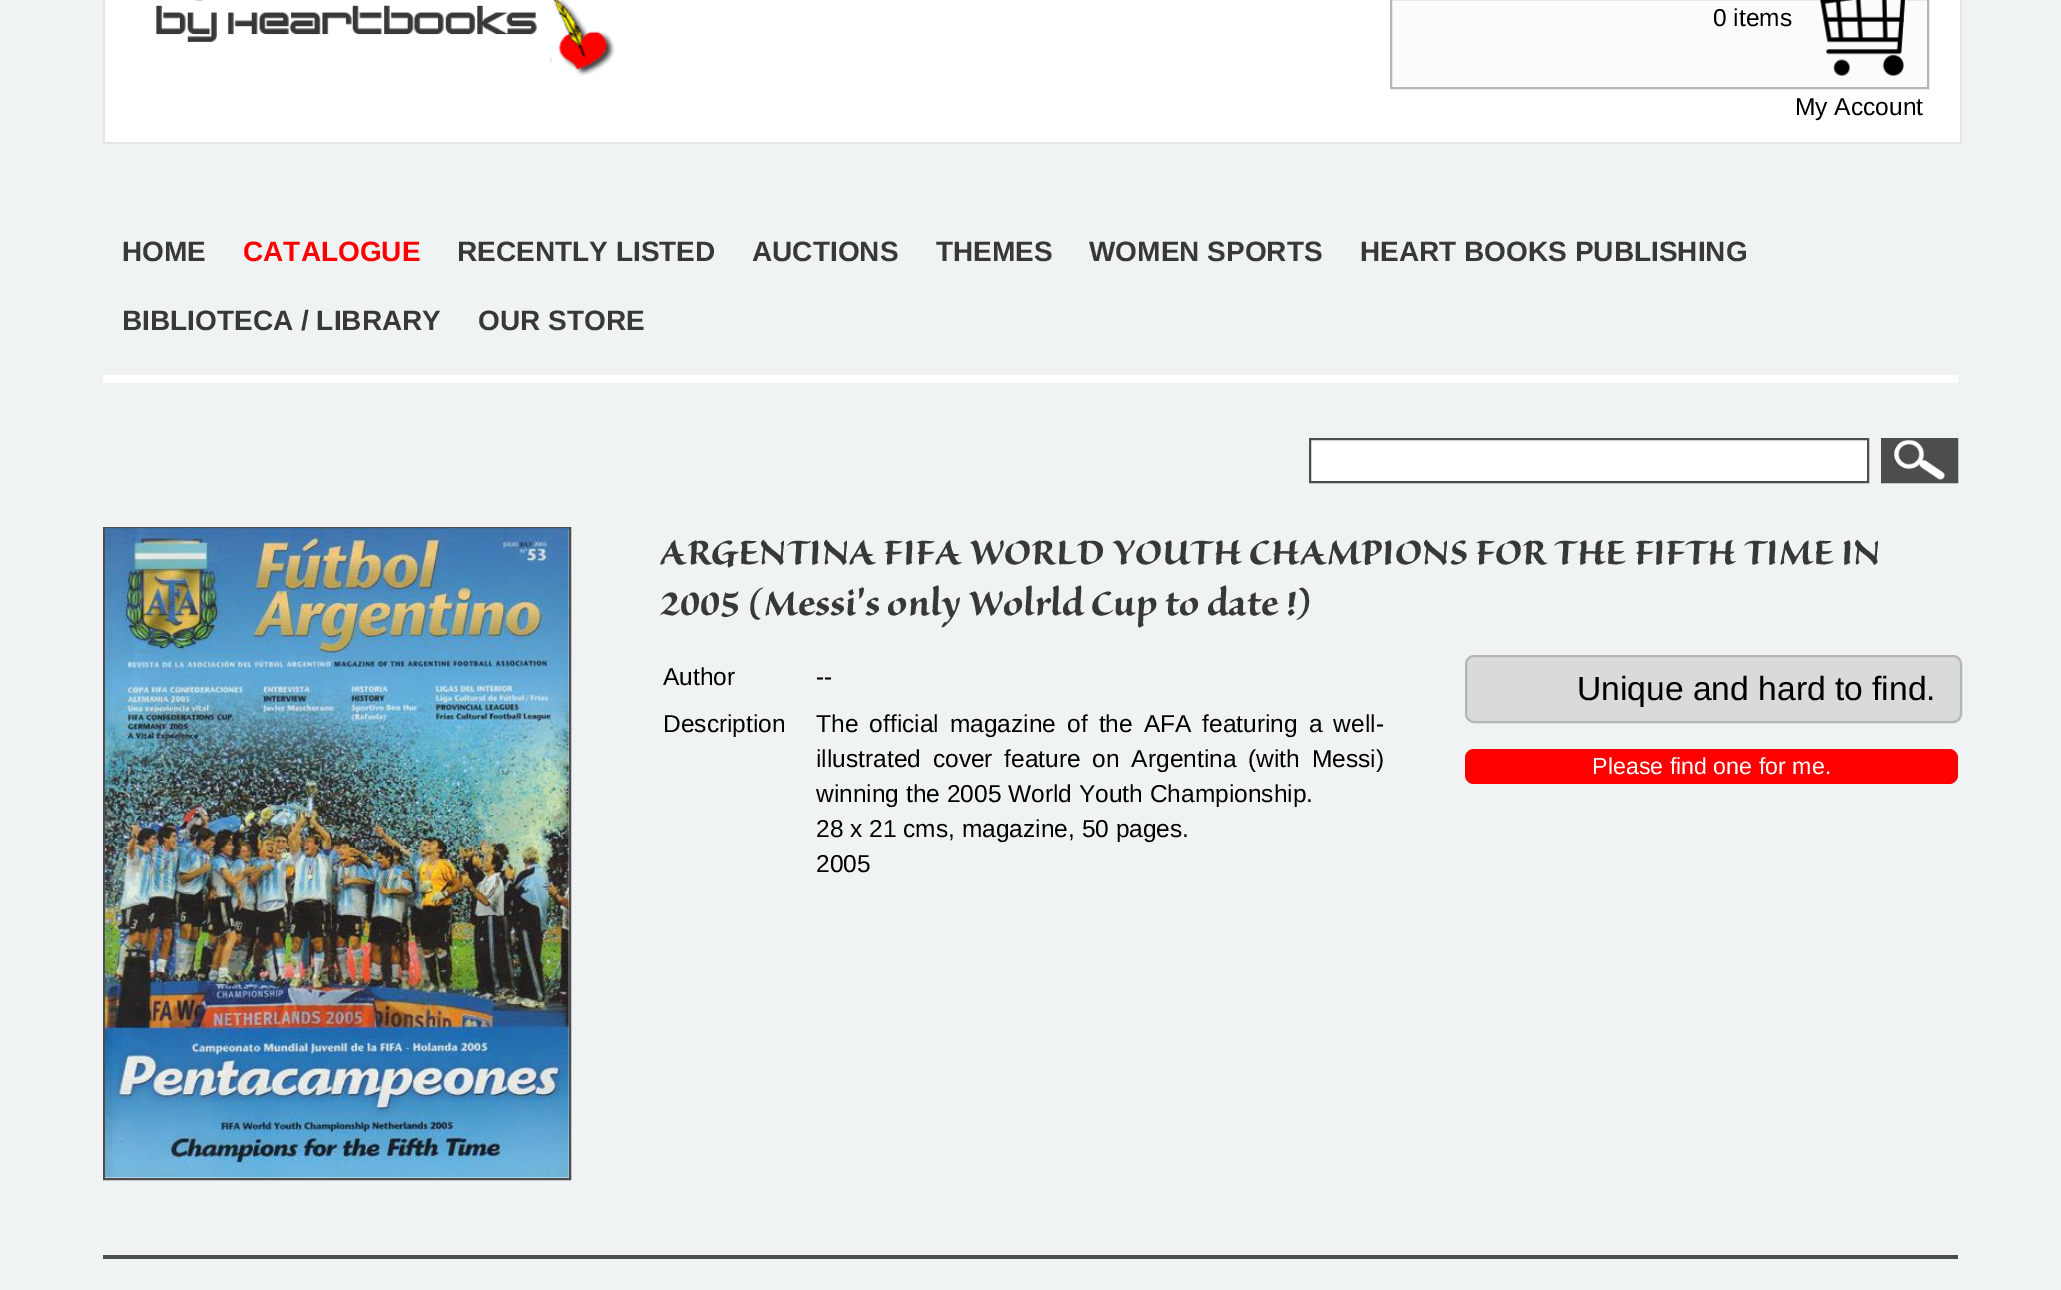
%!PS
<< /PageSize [2061 1290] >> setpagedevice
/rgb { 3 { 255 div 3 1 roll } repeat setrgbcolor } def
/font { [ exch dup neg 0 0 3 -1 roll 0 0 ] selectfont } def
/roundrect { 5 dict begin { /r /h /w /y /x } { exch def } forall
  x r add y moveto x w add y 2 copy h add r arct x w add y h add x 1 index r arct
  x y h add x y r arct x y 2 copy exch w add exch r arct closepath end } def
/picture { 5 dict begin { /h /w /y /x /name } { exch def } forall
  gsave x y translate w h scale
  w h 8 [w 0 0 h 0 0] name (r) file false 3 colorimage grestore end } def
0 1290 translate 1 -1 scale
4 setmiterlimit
240 243 244 rgb
0 0 2061 1290 rectfill
[
  [105 0 1855 142 255 255 255]
  [1960 0 2 144 227 229 230]
  [103 142 1859 2 227 229 230]
  [103 0 2 144 227 229 230]
] { aload pop rgb rectfill } forall
(img/1.rgb) 156 0 459 77 picture
251 251 251 rgb
1391 -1 moveto 1928 -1 lineto 1928 88 lineto 1391 88 lineto closepath gsave fill grestore
182 182 182 rgb
2 setlinewidth
stroke
(img/2.rgb) 1820 0 86 76 picture
255 255 255 rgb
103 375 1855 8 rectfill
1310 439 moveto 1868 439 lineto 1868 482 lineto 1310 482 lineto closepath gsave fill grestore
77 77 77 rgb
stroke
1883 440 73 41 rectfill
(img/3.rgb) 1894 440 51 40 picture
1882 439 75 43 rectstroke
104 528 466 651 rectstroke
(img/4.rgb) 105 528 464 650 picture
216 218 219 rgb
1466 656 495 66 8 roundrect gsave fill grestore
182 182 182 rgb
stroke
255 0 0 rgb
1465 749 493 35 9 roundrect fill
77 77 77 rgb
103 1255 1855 4 rectfill
/LiberationSans-Regular 24.5 font
0 0 0 rgb
1713 26 moveto (0 items) show
1795 115 moveto (My Account) show
/LiberationSans-Bold 28 font
56 56 56 rgb
122 261 moveto (HOME) show
255 0 0 rgb
243 261 moveto (CATALOGUE) show
56 56 56 rgb
[
  [(RECENTLY LISTED) 457 261]
  [(AUCTIONS) 752 261]
  [(THEMES) 936 261]
  [(WOMEN SPORTS) 1089 261]
  [(HEART BOOKS PUBLISHING) 1360 261]
  [(BIBLIOTECA / LIBRARY) 122 330]
  [(OUR STORE) 478 330]
] { aload pop moveto show } forall
/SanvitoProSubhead-Bold 44.8 font
660 564 moveto (ARGENTINA FIFA WORLD YOUTH CHAMPIONS FOR THE FIFTH TIME IN) show
660 615 moveto (2005 \(Messi's only Wolrld Cup to date !\)) show
/LiberationSans-Regular 24.5 font
0 0 0 rgb
[
  [(Author) 663 685]
  [(--) 816 685]
  [(Description) 663 732]
] { aload pop moveto show } forall
816 732 moveto 4.25 0 32 (The official magazine of the AFA featuring a well-) widthshow
816 767 moveto 5 0 32 (illustrated cover feature on Argentina \(with Messi\)) widthshow
[
  [(winning the 2005 World Youth Championship.) 816 802]
  [(28 x 21 cms, magazine, 50 pages.) 816 837]
  [(2005) 816 872]
] { aload pop moveto show } forall
/LiberationSans-Regular 33.6 font
1577 700 moveto (Unique and hard to find.) show
/LiberationSans-Regular 23.25 font
255 255 255 rgb
1592 774 moveto (Please find one for me.) show
showpage
